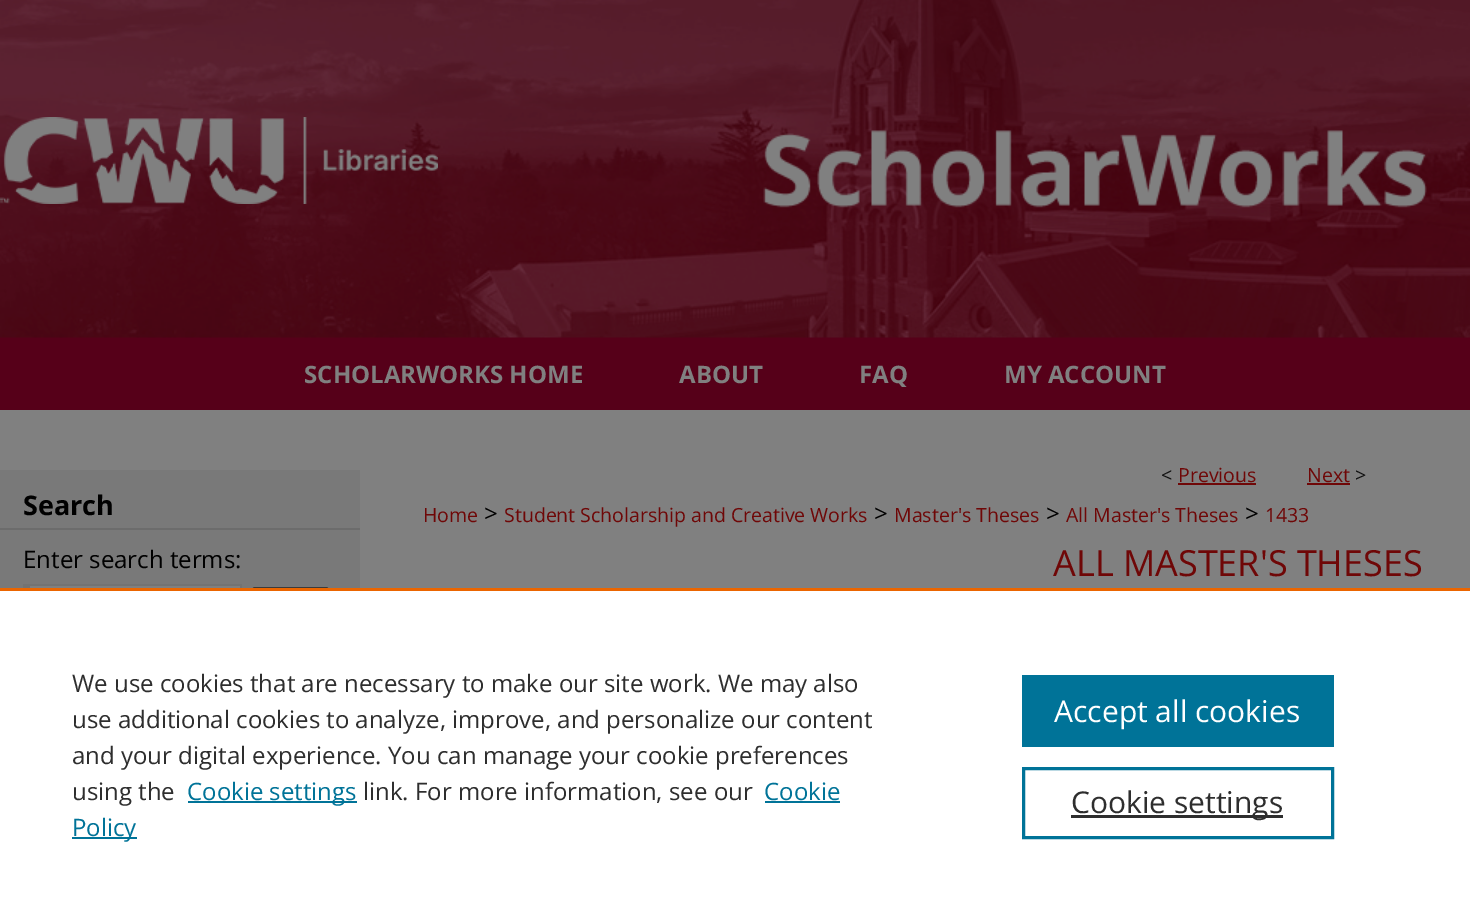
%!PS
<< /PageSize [1470 917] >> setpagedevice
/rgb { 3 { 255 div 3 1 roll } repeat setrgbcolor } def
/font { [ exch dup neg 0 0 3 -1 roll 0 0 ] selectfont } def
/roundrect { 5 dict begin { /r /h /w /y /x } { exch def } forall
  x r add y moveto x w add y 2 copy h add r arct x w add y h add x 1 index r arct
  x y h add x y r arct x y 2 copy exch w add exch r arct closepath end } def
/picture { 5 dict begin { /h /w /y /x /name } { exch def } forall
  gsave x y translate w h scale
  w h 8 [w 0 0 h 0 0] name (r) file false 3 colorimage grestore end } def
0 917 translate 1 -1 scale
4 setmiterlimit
128 128 128 rgb
0 0 1470 917 rectfill
(img/1.rgb) 0 0 1470 338 picture
(img/2.rgb) 0 117 438 87 picture
(img/3.rgb) 763 130 664 78 picture
[
  [0 338 1470 72 86 0 25]
  [0 470 360 118 121 121 121]
  [0 528 360 2 108 108 108]
  [30 586 210 2 128 128 128]
  [23 584 219 2 115 115 115]
  [240 584 2 4 115 115 115]
  [23 586 7 2 115 115 115]
] { aload pop rgb rectfill } forall
59 59 59 rgb
2 setlinewidth
253 588 75 25 2 roundrect stroke
[
  [1178 483 78 2 111 7 7]
  [1307 483 43 2 111 7 7]
  [0 591 1470 326 255 255 255]
  [0 588 1470 3 235 101 0]
  [188 801 169 2 0 115 152]
  [765 801 75 2 0 115 152]
  [72 837 65 2 0 115 152]
  [1022 675 312 72 0 115 152]
] { aload pop rgb rectfill } forall
3 setlinewidth
1023.5 768.5 309 69 rectstroke
46 46 46 rgb
1071 815 212 3 rectfill
/OpenSans-Bold 24 font
128 128 128 rgb
[
  [(SCHOLARWORKS HOME) 304 383]
  [(ABOUT) 679 383]
  [(FAQ) 859 383]
  [(MY ACCOUNT) 1004 383]
] { aload pop moveto show } forall
/OpenSans-Bold 27 font
0 0 0 rgb
23 515 moveto (Search) show
/OpenSans-Regular 24 font
23 568 moveto (Enter search terms:) show
/OpenSans-Regular 19.5 font
17 17 17 rgb
1161 482 moveto (<) show
111 7 7 rgb
1178 482 moveto (Previous) show
1307 482 moveto (Next) show
17 17 17 rgb
1355 482 moveto (>) show
111 7 7 rgb
423 522 moveto (Home) show
/OpenSans-Regular 24 font
0 0 0 rgb
484 522 moveto (>) show
/OpenSans-Regular 19.5 font
111 7 7 rgb
504 522 moveto (Student Scholarship and Creative Works) show
/OpenSans-Regular 24 font
0 0 0 rgb
874 522 moveto (>) show
/OpenSans-Regular 19.5 font
111 7 7 rgb
894 522 moveto (Master's Theses) show
/OpenSans-Regular 24 font
0 0 0 rgb
1046 522 moveto (>) show
/OpenSans-Regular 19.5 font
111 7 7 rgb
1066 522 moveto (All Master's Theses) show
/OpenSans-Regular 24 font
0 0 0 rgb
1245 522 moveto (>) show
/OpenSans-Regular 19.5 font
111 7 7 rgb
1265 522 moveto (1433) show
/OpenSans-Regular 36 font
1053 576 moveto (ALL MASTER'S THESES) show
/OpenSans-Regular 24 font
46 46 46 rgb
[
  [(We use cookies that are necessary to make our site work. We may also) 72 692]
  [(use additional cookies to analyze, improve, and personalize our content) 72 728]
  [(and your digital experience. You can manage your cookie preferences) 72 764]
  [(using the) 72 800]
] { aload pop moveto show } forall
0 115 152 rgb
187 800 moveto (Cookie settings) show
46 46 46 rgb
363 800 moveto (link. For more information, see our) show
0 115 152 rgb
764 800 moveto (Cookie) show
72 836 moveto (Policy) show
/OpenSans-Regular 30 font
255 255 255 rgb
1054 722 moveto (Accept all cookies) show
46 46 46 rgb
1071 813 moveto (Cookie settings) show
showpage
